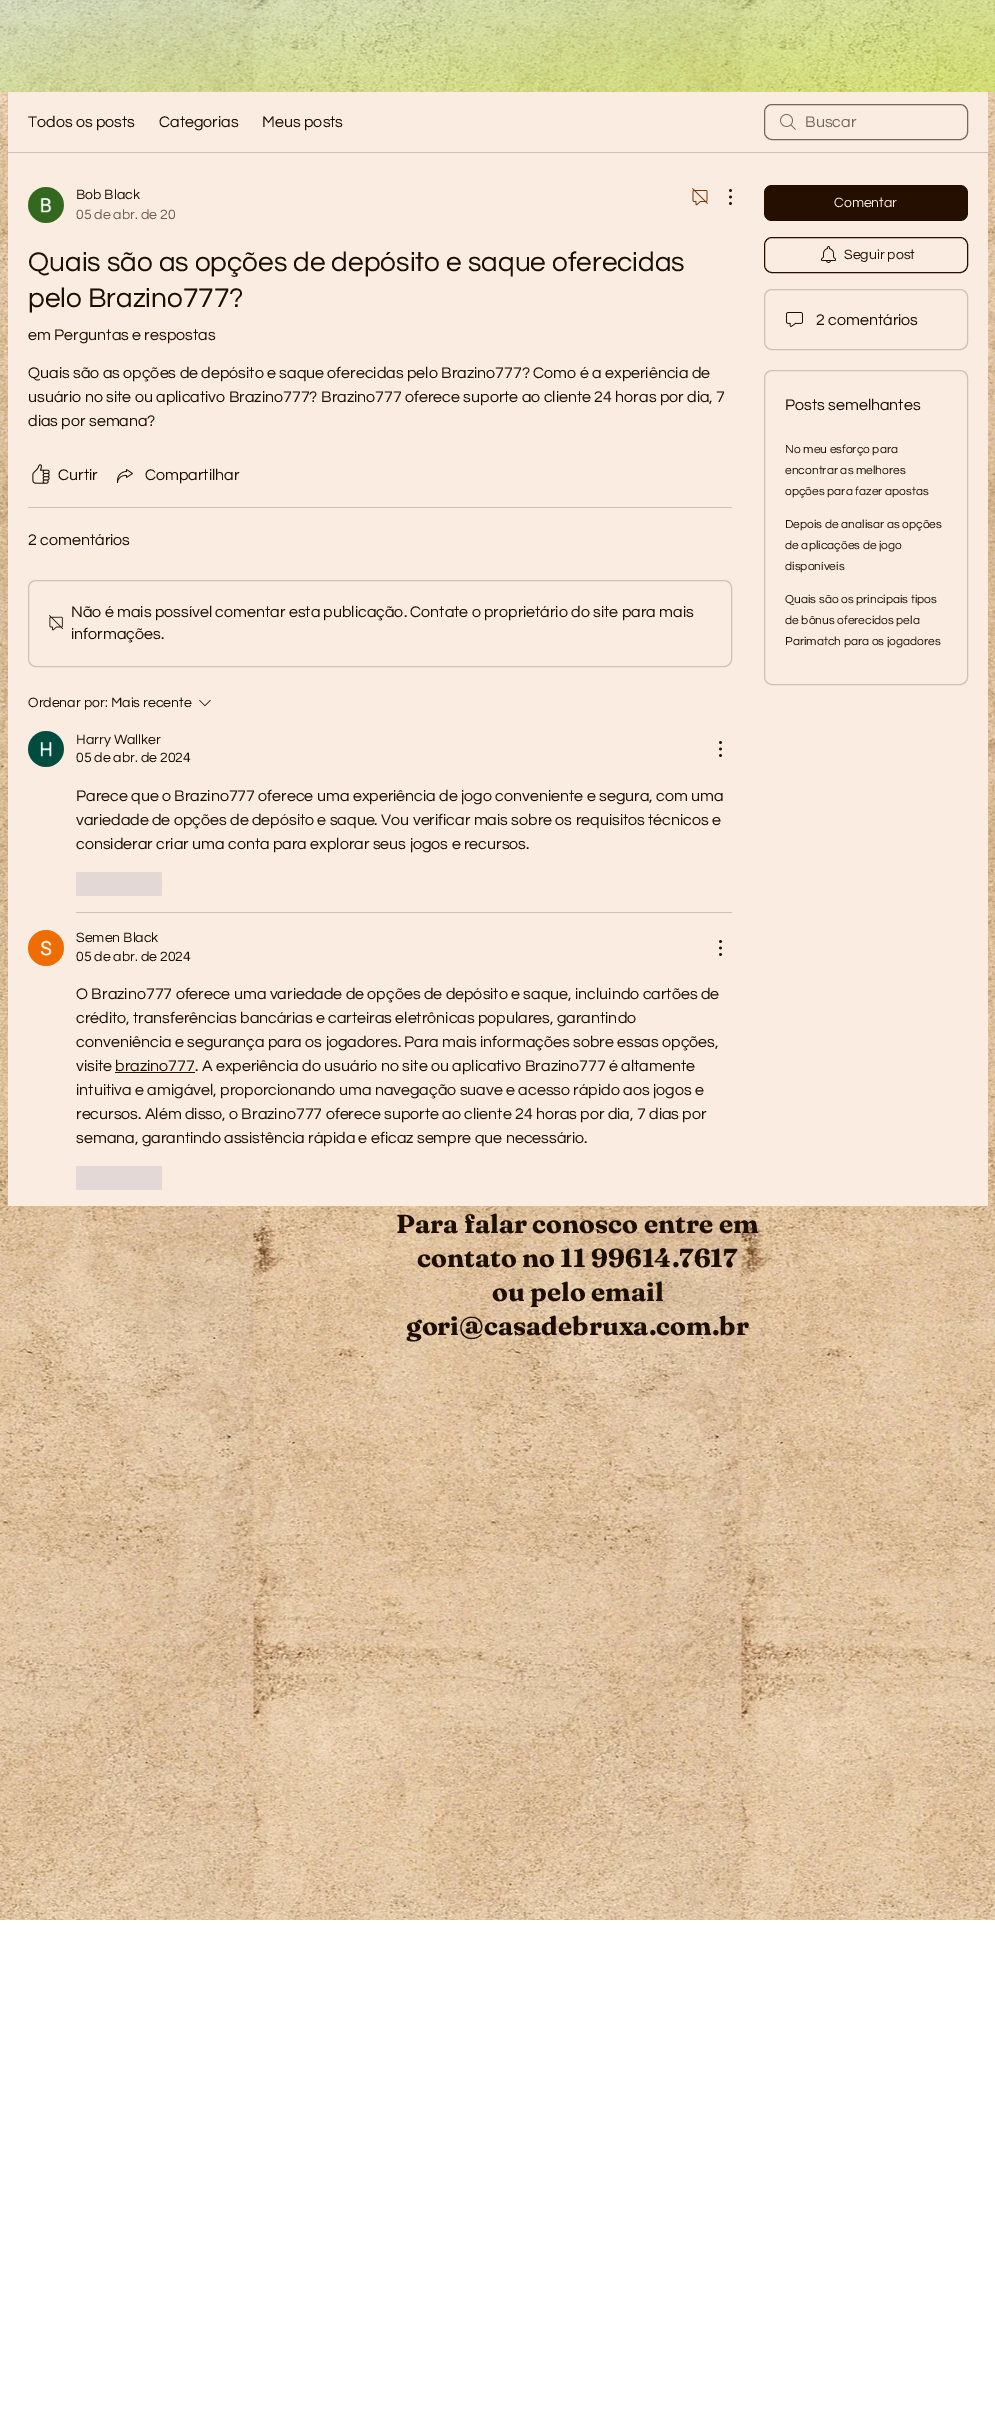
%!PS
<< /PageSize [995 2421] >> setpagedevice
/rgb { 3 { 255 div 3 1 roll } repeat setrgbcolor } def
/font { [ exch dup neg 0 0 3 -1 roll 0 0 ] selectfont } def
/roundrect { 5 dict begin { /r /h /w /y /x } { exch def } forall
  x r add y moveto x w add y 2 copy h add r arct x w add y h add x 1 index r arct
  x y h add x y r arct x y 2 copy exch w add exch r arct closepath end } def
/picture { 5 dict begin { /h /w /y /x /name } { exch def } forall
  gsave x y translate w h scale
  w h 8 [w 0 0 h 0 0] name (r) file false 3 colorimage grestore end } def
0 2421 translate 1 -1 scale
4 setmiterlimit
255 255 255 rgb
0 0 995 2421 rectfill
(img/1.rgb) 0 0 995 1920 picture
250 236 225 rgb
8 92 980 1114 rectfill
206 192 181 rgb
8 152 980 1 rectfill
(img/2.rgb) 780 114 16 16 picture
117 103 92 rgb
764.5 104.5 203 35 7.5 roundrect stroke
(img/3.rgb) 28 187 36 36 picture
(img/4.rgb) 692 188 16 18 picture
(img/5.rgb) 729 189 3 16 picture
(img/6.rgb) 32 464 18 20 picture
(img/7.rgb) 117 469 16 14 picture
206 192 181 rgb
28 507 704 1 rectfill
28.5 580.5 703 86 7.5 roundrect stroke
(img/8.rgb) 49 615 14 16 picture
(img/9.rgb) 199 699 12 8 picture
(img/10.rgb) 28 731 36 36 picture
(img/11.rgb) 719 741 3 16 picture
227 216 213 rgb
76 872 86 24 2 roundrect fill
206 192 181 rgb
76 912 656 1 rectfill
(img/12.rgb) 28 930 36 36 picture
(img/11.rgb) 719 940 3 16 picture
36 15 0 rgb
115 1072 80 1 rectfill
227 216 213 rgb
76 1166 86 24 2 roundrect fill
36 15 0 rgb
764 185 204 36 8 roundrect fill
764.5 237.5 203 35 7.5 roundrect stroke
(img/13.rgb) 821 246 15 17 picture
206 192 181 rgb
764.5 289.5 203 60 7.5 roundrect stroke
(img/14.rgb) 786 312 17 15 picture
764.5 370.5 203 314 7.5 roundrect stroke
/Questrial-Regular 16 font
29 14 3 rgb
[
  [(Todos os posts) 28 127]
  [(Categorias) 159 127]
  [(Meus posts) 262 127]
] { aload pop moveto show } forall
117 103 92 rgb
805 127 moveto (Buscar) show
/Questrial-Regular 14 font
29 14 3 rgb
76 199 moveto (Bob Black) show
109 94 83 rgb
76 219 moveto (05 de abr. de 20) show
/Questrial-Regular 28 font
29 14 3 rgb
28 271 moveto (Quais são as opções de depósito e saque oferecidas) show
28 307 moveto (pelo Brazino777?) show
/Questrial-Regular 16 font
36 15 0 rgb
28 340 moveto (em Perguntas e respostas) show
29 14 3 rgb
[
  [(Quais são as opções de depósito e saque oferecidas pelo Brazino777? Como é a experiência de) 28 378]
  [(usuário no site ou aplicativo Brazino777? Brazino777 oferece suporte ao cliente 24 horas por dia, 7) 28 402]
  [(dias por semana?) 28 426]
  [(Curtir) 58 480]
  [(Compartilhar) 145 480]
  [(2 comentários) 28 545]
  [(Não é mais possível comentar esta publicação. Contate o proprietário do site para mais) 71 617]
  [(informações.) 71 639]
] { aload pop moveto show } forall
/Questrial-Regular 14 font
[
  [(Ordenar por:) 28 707]
  [(Mais recente) 111 707]
  [(Harry Wallker) 76 744]
  [(05 de abr. de 2024) 76 762]
] { aload pop moveto show } forall
/Questrial-Regular 16 font
[
  [(Parece que o Brazino777 oferece uma experiência de jogo conveniente e segura, com uma) 76 801]
  [(variedade de opções de depósito e saque. Vou verificar mais sobre os requisitos técnicos e) 76 825]
  [(considerar criar uma conta para explorar seus jogos e recursos.) 76 849]
] { aload pop moveto show } forall
/Questrial-Regular 14 font
76 942 moveto (Semen Black) show
76 961 moveto (05 de abr. de 2024) show
/Questrial-Regular 16 font
[
  [(O Brazino777 oferece uma variedade de opções de depósito e saque, incluindo cartões de) 76 999]
  [(crédito, transferências bancárias e carteiras eletrônicas populares, garantindo) 76 1023]
  [(conveniência e segurança para os jogadores. Para mais informações sobre essas opções,) 76 1047]
  [(visite) 76 1071]
] { aload pop moveto show } forall
36 15 0 rgb
115 1071 moveto (brazino777) show
29 14 3 rgb
[
  [(. A experiência do usuário no site ou aplicativo Brazino777 é altamente) 195 1071]
  [(intuitiva e amigável, proporcionando uma navegação suave e acesso rápido aos jogos e) 76 1095]
  [(recursos. Além disso, o Brazino777 oferece suporte ao cliente 24 horas por dia, 7 dias por) 76 1119]
  [(semana, garantindo assistência rápida e eficaz sempre que necessário.) 76 1143]
] { aload pop moveto show } forall
/Questrial-Regular 14 font
250 236 225 rgb
834 207 moveto (Comentar) show
36 15 0 rgb
844 259 moveto (Seguir post) show
/Questrial-Regular 16 font
29 14 3 rgb
816 325 moveto (2 comentários) show
785 410 moveto (Posts semelhantes) show
/Questrial-Regular 12 font
[
  [(No meu esforço para) 785 453]
  [(encontrar as melhores) 785 474]
  [(opções para fazer apostas) 785 495]
  [(Depois de analisar as opções) 785 528]
  [(de aplicações de jogo) 785 549]
  [(disponíveis) 785 570]
  [(Quais são os principais tipos) 785 603]
  [(de bônus oferecidos pela) 785 624]
  [(Parimatch para os jogadores) 785 645]
] { aload pop moveto show } forall
/Fraunces-Bold 26 font
[
  [(Para falar conosco entre em) 396 1233]
  [(contato no 11 99614.7617) 417 1267]
  [(ou pelo email) 492 1301]
  [(gori@casadebruxa.com.br) 406 1335]
] { aload pop moveto show } forall
showpage
